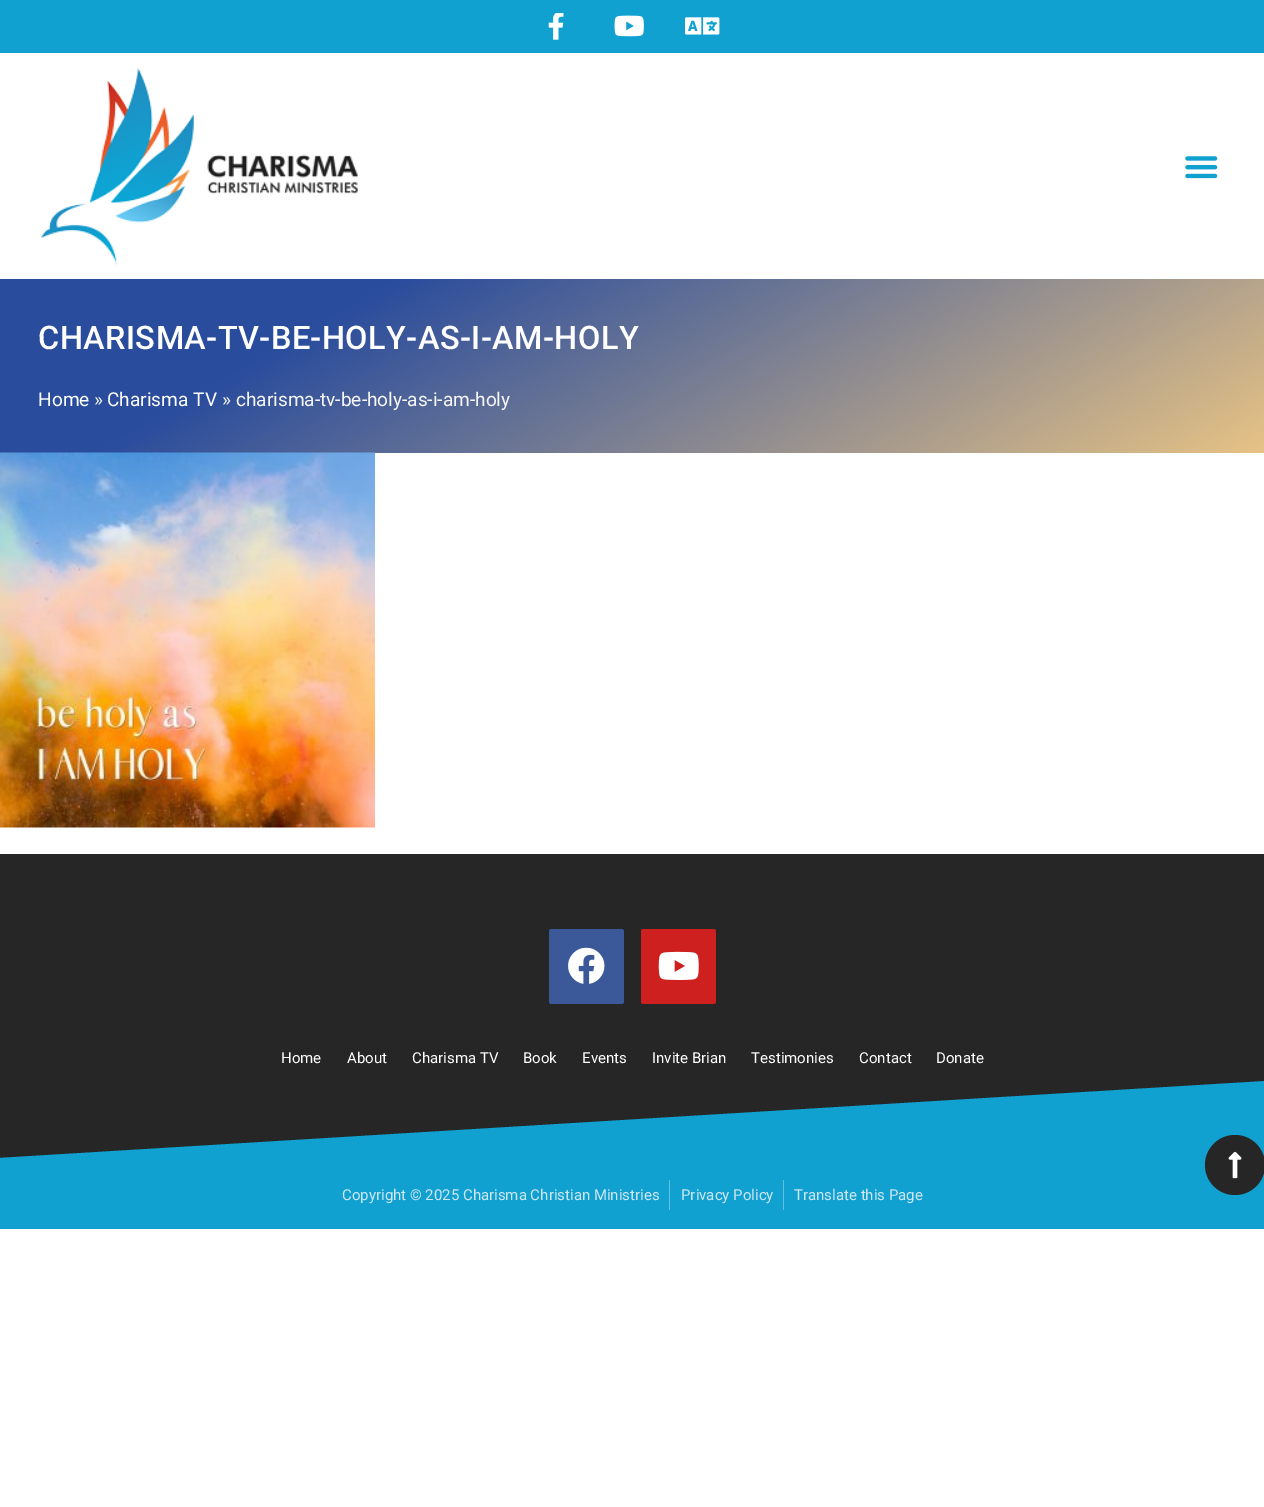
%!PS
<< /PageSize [1264 1507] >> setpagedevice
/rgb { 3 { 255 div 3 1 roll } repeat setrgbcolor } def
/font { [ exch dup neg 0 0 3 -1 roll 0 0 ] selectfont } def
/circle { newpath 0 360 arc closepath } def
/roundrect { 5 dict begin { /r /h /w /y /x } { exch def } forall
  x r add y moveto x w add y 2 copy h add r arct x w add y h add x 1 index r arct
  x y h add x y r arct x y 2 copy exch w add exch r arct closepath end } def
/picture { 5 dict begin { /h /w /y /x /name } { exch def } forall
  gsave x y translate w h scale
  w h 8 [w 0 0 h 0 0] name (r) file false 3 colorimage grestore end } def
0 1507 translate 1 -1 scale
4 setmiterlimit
255 255 255 rgb
0 0 1264 1507 rectfill
17 161 209 rgb
0 0 1264 53 rectfill
(img/1.rgb) 548 13 16 27 picture
(img/2.rgb) 614 15 30 22 picture
(img/3.rgb) 685 17 35 18 picture
(img/4.rgb) 41 68 317 197 picture
(img/5.rgb) 1185 156 33 23 picture
gsave 0 279 moveto 1264 279 lineto 1264 453 lineto 0 453 lineto closepath clip newpath
<< /ShadingType 2 /ColorSpace /DeviceRGB /Coords [437 27 828 705] /Extend [true true] /Function << /FunctionType 3 /Domain [0 1] /Functions [<< /FunctionType 2 /Domain [0 1] /C0 [0.161 0.298 0.616] /C1 [0.161 0.298 0.616] /N 1 >> << /FunctionType 2 /Domain [0 1] /C0 [0.161 0.298 0.616] /C1 [0.906 0.765 0.522] /N 1 >>] /Bounds [0.25] /Encode [0 1 0 1] >> >> shfill grestore
(img/6.rgb) 0 452 375 376 picture
38 38 38 rgb
0 854 1264 304 rectfill
59 89 152 rgb
549 929 75 75 2.5 roundrect fill
(img/7.rgb) 568 947 37 37 picture
205 32 31 rgb
641 929 75 75 2.5 roundrect fill
(img/8.rgb) 658 951 41 29 picture
17 161 209 rgb
-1 1158 moveto -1 1163 lineto 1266 1163 lineto 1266 1081 lineto closepath fill
0 1163 1264 66 rectfill
38 38 38 rgb
1235 1165 30 circle fill
(img/9.rgb) 1228 1151 14 28 picture
96 192 224 rgb
669 1180 1 30 rectfill
783 1180 1 30 rectfill
/Roboto-Medium 32.5 font
255 255 255 rgb
38 349 moveto 0.4 0 (CHARISMA-TV-BE-HOLY-AS-I-AM-HOLY) ashow
/Roboto-Regular 19.1 font
38 406 moveto (Home) show
246 246 246 rgb
94 406 moveto (») show
255 255 255 rgb
107 406 moveto (Charisma TV) show
246 246 246 rgb
222 406 moveto (» charisma-tv-be-holy-as-i-am-holy) show
/Roboto-Regular 15 font
255 255 255 rgb
[
  [(Home) 281 1063]
  [(About) 347 1063]
  [(Charisma TV) 412 1063]
  [(Book) 523 1063]
  [(Events) 582 1063]
  [(Invite Brian) 652 1063]
  [(Testimonies) 751 1063]
  [(Contact) 859 1063]
  [(Donate) 936 1063]
] { aload pop moveto show } forall
206 231 242 rgb
[
  [(Copyright © 2025 Charisma Christian Ministries) 342 1200]
  [(Privacy Policy) 681 1200]
  [(Translate this Page) 794 1200]
] { aload pop moveto show } forall
showpage
